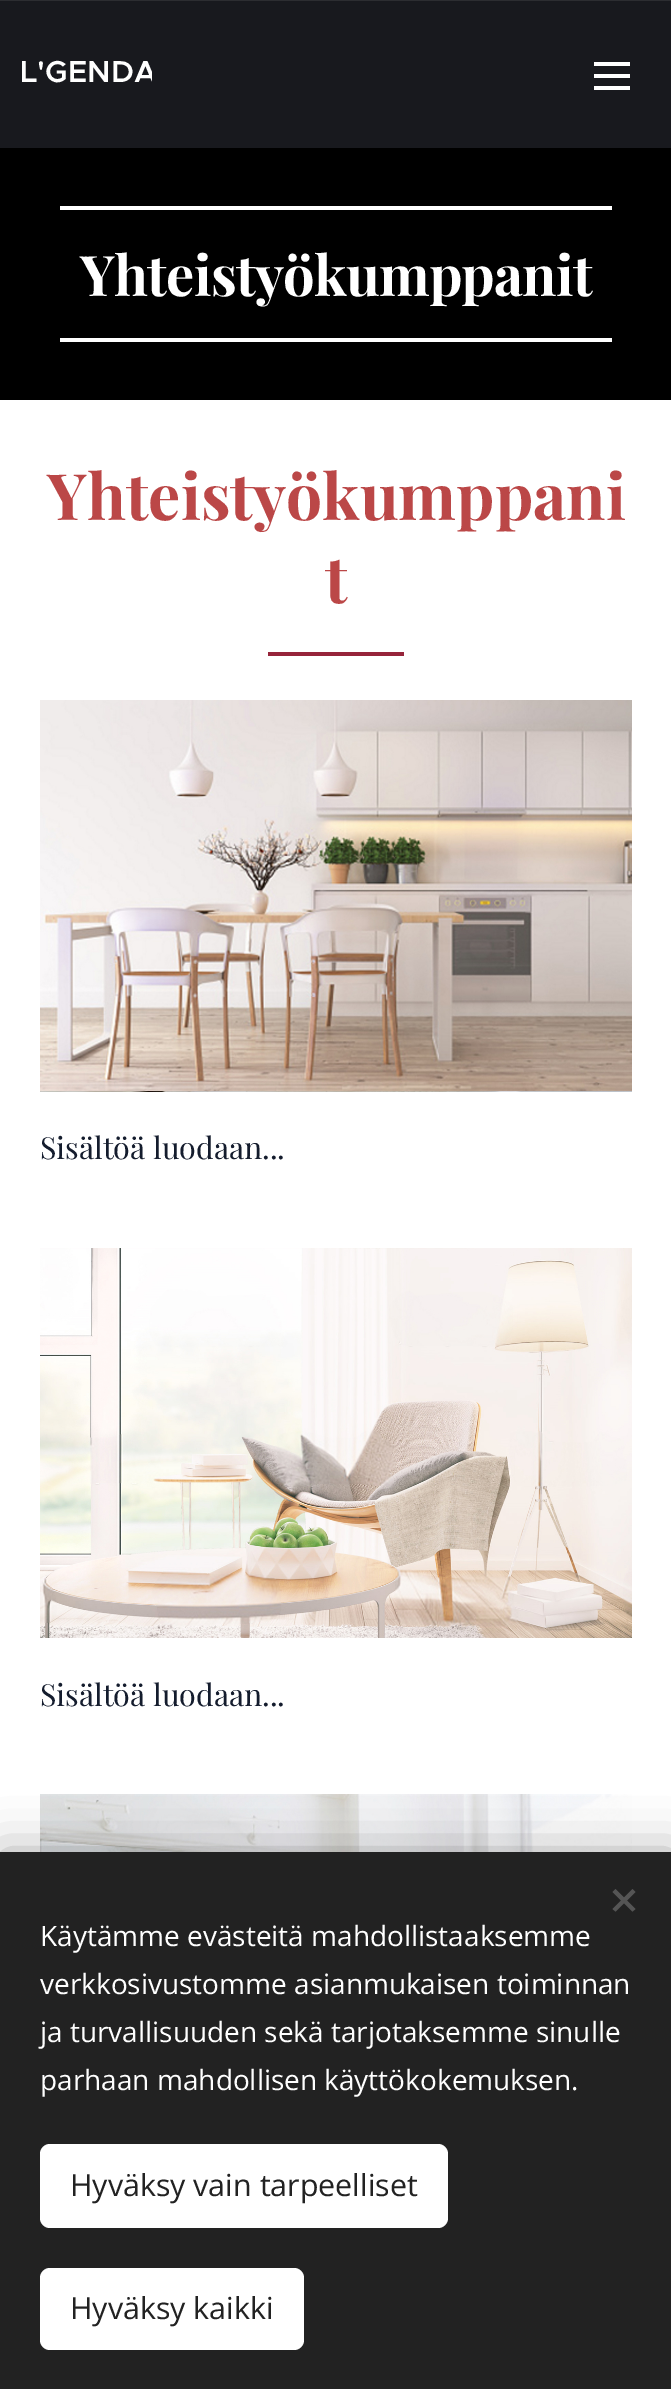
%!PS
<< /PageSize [671 2389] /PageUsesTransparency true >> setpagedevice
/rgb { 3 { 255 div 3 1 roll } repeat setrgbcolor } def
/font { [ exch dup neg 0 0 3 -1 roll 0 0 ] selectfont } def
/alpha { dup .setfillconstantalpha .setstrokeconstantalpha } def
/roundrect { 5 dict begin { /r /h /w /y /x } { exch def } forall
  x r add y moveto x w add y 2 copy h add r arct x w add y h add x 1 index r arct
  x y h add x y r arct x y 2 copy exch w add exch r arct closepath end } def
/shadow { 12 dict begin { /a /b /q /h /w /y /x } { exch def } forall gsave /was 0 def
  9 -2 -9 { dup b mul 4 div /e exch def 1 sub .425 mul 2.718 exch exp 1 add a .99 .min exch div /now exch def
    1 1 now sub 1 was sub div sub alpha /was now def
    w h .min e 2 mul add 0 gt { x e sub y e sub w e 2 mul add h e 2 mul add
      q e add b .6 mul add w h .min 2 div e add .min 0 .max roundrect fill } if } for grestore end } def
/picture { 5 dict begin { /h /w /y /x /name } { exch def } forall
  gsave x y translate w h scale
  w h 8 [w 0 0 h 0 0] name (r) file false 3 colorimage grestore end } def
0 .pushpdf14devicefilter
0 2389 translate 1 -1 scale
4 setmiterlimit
255 255 255 rgb
0 0 671 2389 rectfill
[
  [0 1 671 147 24 25 30]
  [594 74 36 4 255 255 255]
  [594 62 36 4 255 255 255]
  [594 86 36 4 255 255 255]
  [0 0 671 1 44 45 49]
  [0 148 671 252 0 0 0]
  [60 206 552 4 255 255 255]
  [60 338 552 4 255 255 255]
  [268 652 136 4 150 36 58]
] { aload pop rgb rectfill } forall
(img/1.rgb) 40 700 592 392 picture
(img/2.rgb) 40 1248 592 390 picture
(img/3.rgb) 40 1794 592 58 picture
0 0 0 rgb
0 1852 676 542 0 25 0.33 shadow
34 34 34 rgb
0 1852 671 537 rectfill
85 85 85 rgb
612.5 1909 moveto 632.5 1889 lineto 635.5 1892 lineto 615.5 1911.5 lineto closepath fill
615.5 1889 moveto 635.5 1909 lineto 632.5 1911.5 lineto 612.5 1892 lineto closepath fill
255 255 255 rgb
40 2144 408 84 10 roundrect fill
40 2268 264 82 10 roundrect fill
gsave
14 50 138 48 rectclip
/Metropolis-SemiBold 30.4 font
20 82 moveto (L'GENDA) show
grestore
/PlayfairDisplay-Bold 56 font
80 296 moveto -0.8 0 (Yhteistyökumppanit) ashow
/PlayfairDisplay-Bold 64 font
187 71 71 rgb
47 520 moveto (Yhteistyökumppani) show
325 603 moveto (t) show
/PlayfairDisplay-Regular 30.4 font
20 28 45 rgb
40 1159 moveto (Sisältöä luodaan...) show
40 1706 moveto (Sisältöä luodaan...) show
/OpenSans-Regular 28 font
255 255 255 rgb
[
  [(Käytämme evästeitä mahdollistaaksemme) 40 1946]
  [(verkkosivustomme asianmukaisen toiminnan) 40 1994]
  [(ja turvallisuuden sekä tarjotaksemme sinulle) 40 2042]
  [(parhaan mahdollisen käyttökokemuksen.) 40 2090]
] { aload pop moveto show } forall
/OpenSans-Regular 30.4 font
34 34 34 rgb
70 2196 moveto (Hyväksy vain tarpeelliset) show
70 2319 moveto (Hyväksy kaikki) show
.poppdf14devicefilter showpage
